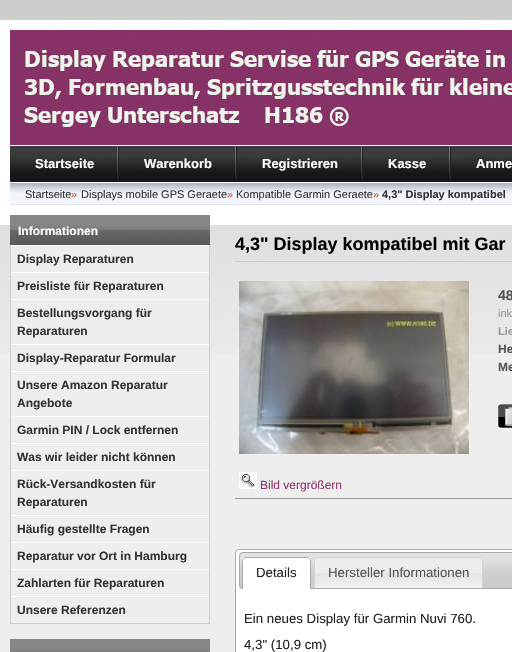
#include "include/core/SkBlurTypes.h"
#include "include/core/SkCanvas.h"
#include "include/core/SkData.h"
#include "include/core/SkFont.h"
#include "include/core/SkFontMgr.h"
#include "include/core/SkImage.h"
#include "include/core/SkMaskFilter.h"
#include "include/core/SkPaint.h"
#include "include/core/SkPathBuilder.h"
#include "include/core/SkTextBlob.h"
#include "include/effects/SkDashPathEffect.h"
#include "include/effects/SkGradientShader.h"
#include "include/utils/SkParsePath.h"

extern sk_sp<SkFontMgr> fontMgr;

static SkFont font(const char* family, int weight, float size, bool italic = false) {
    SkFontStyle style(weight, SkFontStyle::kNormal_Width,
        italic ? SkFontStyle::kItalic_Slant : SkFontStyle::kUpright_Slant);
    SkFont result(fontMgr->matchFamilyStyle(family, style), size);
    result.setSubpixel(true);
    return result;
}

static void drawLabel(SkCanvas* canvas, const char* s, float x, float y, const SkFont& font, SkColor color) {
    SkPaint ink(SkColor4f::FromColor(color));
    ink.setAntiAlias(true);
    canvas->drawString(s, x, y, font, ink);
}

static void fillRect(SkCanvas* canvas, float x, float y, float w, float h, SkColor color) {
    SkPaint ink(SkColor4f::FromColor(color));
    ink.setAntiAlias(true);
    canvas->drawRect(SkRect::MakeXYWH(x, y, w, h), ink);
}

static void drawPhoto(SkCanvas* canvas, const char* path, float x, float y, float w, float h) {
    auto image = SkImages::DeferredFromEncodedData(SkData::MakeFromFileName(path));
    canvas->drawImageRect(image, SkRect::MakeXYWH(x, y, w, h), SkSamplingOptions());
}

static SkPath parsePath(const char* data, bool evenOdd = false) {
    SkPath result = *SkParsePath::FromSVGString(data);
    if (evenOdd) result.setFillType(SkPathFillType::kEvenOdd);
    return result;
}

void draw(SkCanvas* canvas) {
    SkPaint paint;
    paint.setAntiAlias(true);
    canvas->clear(0xFFEEEEEE);
    drawPhoto(canvas, "assets/img1.png", 0, 0, 512, 353);
    fillRect(canvas, 10, 205, 502, 10, 0xFFFFFFFF);
    fillRect(canvas, 210, 215, 302, 10, 0xFFFFFFFF);
    fillRect(canvas, 0, 20, 10, 205, 0xFFFFFFFF);
    drawPhoto(canvas, "assets/img2.png", 10, 30, 502, 115);
    fillRect(canvas, 10, 20, 502, 10, 0xFFFFFFFF);
    fillRect(canvas, 10, 145, 502, 1, 0xFFFFFFFF);
    drawPhoto(canvas, "assets/img3.png", 18, 30, 494, 104);
    drawPhoto(canvas, "assets/img4.png", 10, 146, 502, 36);
    drawPhoto(canvas, "assets/img5.png", 117, 146, 2, 36);
    SkFont font1 = font("Liberation Sans", 700, 13);
    drawLabel(canvas, "Startseite", 35, 168, font1, 0xFFFFFFFF);
    drawPhoto(canvas, "assets/img5.png", 235, 146, 2, 36);
    drawLabel(canvas, "Warenkorb", 144, 168, font1, 0xFFFFFFFF);
    drawPhoto(canvas, "assets/img5.png", 361, 146, 2, 36);
    drawLabel(canvas, "Registrieren", 262, 168, font1, 0xFFFFFFFF);
    drawPhoto(canvas, "assets/img5.png", 449, 146, 2, 36);
    drawLabel(canvas, "Kasse", 388, 168, font1, 0xFFFFFFFF);
    drawLabel(canvas, "Anme", 476, 168, font1, 0xFFFFFFFF);
    drawPhoto(canvas, "assets/img6.png", 10, 182, 502, 23);
    SkFont font2 = font("Liberation Sans", 400, 11);
    drawLabel(canvas, "Startseite", 25, 198, font2, 0xFF333333);
    drawLabel(canvas, "»", 71, 198, font2, 0xFFC64934);
    drawLabel(canvas, "Displays mobile GPS Geraete", 81, 198, font2, 0xFF333333);
    drawLabel(canvas, "»", 227, 198, font2, 0xFFC64934);
    drawLabel(canvas, "Kompatible Garmin Geraete", 236, 198, font2, 0xFF333333);
    drawLabel(canvas, "»", 373, 198, font2, 0xFFC64934);
    SkFont font3 = font("Liberation Sans", 700, 11);
    drawLabel(canvas, "4,3\" Display kompatibel", 382, 198, font3, 0xFF333333);
    fillRect(canvas, 10, 215, 200, 11, 0xFF868686);
    drawPhoto(canvas, "assets/img7.png", 10, 226, 200, 19);
    SkFont font4 = font("Liberation Sans", 700, 12);
    drawLabel(canvas, "Informationen", 18, 235, font4, 0xFFFFFFFF);
    fillRect(canvas, 11, 246, 198, 107, 0xFFEDEDED);
    fillRect(canvas, 209, 245, 1, 379, 0xFFCCCCCC);
    fillRect(canvas, 10, 623, 200, 1, 0xFFCCCCCC);
    fillRect(canvas, 10, 245, 1, 379, 0xFFCCCCCC);
    fillRect(canvas, 11, 245, 198, 1, 0xFFFFFFFF);
    drawLabel(canvas, "Display Reparaturen", 17, 263, font4, 0xFF333333);
    fillRect(canvas, 11, 272, 198, 1, 0xFFFFFFFF);
    drawLabel(canvas, "Preisliste für Reparaturen", 17, 290, font4, 0xFF333333);
    fillRect(canvas, 11, 299, 198, 1, 0xFFFFFFFF);
    drawLabel(canvas, "Bestellungsvorgang für", 17, 317, font4, 0xFF333333);
    drawLabel(canvas, "Reparaturen", 17, 335, font4, 0xFF333333);
    fillRect(canvas, 11, 344, 198, 1, 0xFFFFFFFF);
    drawLabel(canvas, "Display-Reparatur Formular", 17, 362, font4, 0xFF333333);
    fillRect(canvas, 11, 371, 198, 1, 0xFFFFFFFF);
    drawLabel(canvas, "Unsere Amazon Reparatur", 17, 389, font4, 0xFF333333);
    drawLabel(canvas, "Angebote", 17, 407, font4, 0xFF333333);
    fillRect(canvas, 11, 416, 198, 1, 0xFFFFFFFF);
    drawLabel(canvas, "Garmin PIN / Lock entfernen", 17, 434, font4, 0xFF333333);
    fillRect(canvas, 11, 443, 198, 1, 0xFFFFFFFF);
    drawLabel(canvas, "Was wir leider nicht können", 17, 461, font4, 0xFF333333);
    fillRect(canvas, 11, 470, 198, 1, 0xFFFFFFFF);
    drawLabel(canvas, "Rück-Versandkosten für", 17, 488, font4, 0xFF333333);
    drawLabel(canvas, "Reparaturen", 17, 506, font4, 0xFF333333);
    fillRect(canvas, 11, 515, 198, 1, 0xFFFFFFFF);
    drawLabel(canvas, "Häufig gestellte Fragen", 17, 533, font4, 0xFF333333);
    fillRect(canvas, 11, 542, 198, 1, 0xFFFFFFFF);
    drawLabel(canvas, "Reparatur vor Ort in Hamburg", 17, 560, font4, 0xFF333333);
    fillRect(canvas, 11, 569, 198, 1, 0xFFFFFFFF);
    drawLabel(canvas, "Zahlarten für Reparaturen", 17, 587, font4, 0xFF333333);
    fillRect(canvas, 11, 596, 198, 1, 0xFFFFFFFF);
    drawLabel(canvas, "Unsere Referenzen", 17, 614, font4, 0xFF333333);
    fillRect(canvas, 10, 639, 200, 11, 0xFF868686);
    fillRect(canvas, 10, 650, 200, 2, 0xFF808080);
    fillRect(canvas, 235, 261, 277, 1, 0xFFCCCCCC);
    SkFont font5 = font("Liberation Sans", 700, 18);
    drawLabel(canvas, "4,3\" Display kompatibel mit Gar", 235, 250, font5, 0xFF000000);
    SkFont font6 = font("Liberation Sans", 700, 14);
    drawLabel(canvas, "48", 498, 300, font6, 0xFF555555);
    drawLabel(canvas, "ink", 498, 317, font2, 0xFF999999);
    drawLabel(canvas, "Lie", 498, 335, font3, 0xFF999999);
    drawLabel(canvas, "He", 498, 353, font4, 0xFF555555);
    drawLabel(canvas, "Me", 498, 371, font4, 0xFF555555);
    drawPhoto(canvas, "assets/img8.png", 498, 404, 14, 24);
    drawPhoto(canvas, "assets/img9.png", 239, 281, 230, 173);
    drawPhoto(canvas, "assets/img10.png", 239, 472, 18, 17);
    SkFont font7 = font("Liberation Sans", 400, 12);
    drawLabel(canvas, "Bild vergrößern", 260, 489, font7, 0xFF893769);
    fillRect(canvas, 235, 498, 277, 1, 0xFF999999);
    paint.setColor(0xFFFFFFFF);
    canvas->drawRoundRect(SkRect::MakeXYWH(235.5f, 549.5f, 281, 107), 3.5f, 3.5f, paint);
    paint.setStroke(true);
    paint.setStrokeWidth(1);
    paint.setColor(0xFFAAAAAA);
    canvas->drawRoundRect(SkRect::MakeXYWH(235.5f, 549.5f, 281, 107), 3.5f, 3.5f, paint);
    drawPhoto(canvas, "assets/img11.png", 239, 552, 273, 37);
    canvas->drawRoundRect(SkRect::MakeXYWH(239.5f, 552.5f, 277, 36), 3.5f, 3.5f, paint);
    fillRect(canvas, 242, 560, 69, 29, 0xFFFFFFFF);
    fillRect(canvas, 242, 557, 69, 3, 0xFFFEFEFE);
    paint.setStroke(false);
    canvas->drawPath(parsePath("M246 557H307C309 557 311 559 311 561V589H242V561C242 559 244 557 246 557ZM246 558H307C309 558 310 559 310 561V589H243V561C243 559 244 558 246 558Z", true), paint);
    SkFont font8 = font("Liberation Sans", 400, 13.25f);
    drawLabel(canvas, "Details", 256, 577, font8, 0xFF222222);
    drawPhoto(canvas, "assets/img12.png", 314, 557, 169, 31);
    paint.setColor(0xFFD3D3D3);
    canvas->drawPath(parsePath("M318 557H479C481 557 483 559 483 561V588H314V561C314 559 316 557 318 557ZM318 558H479C481 558 482 559 482 561V588H315V561C315 559 316 558 318 558Z", true), paint);
    drawLabel(canvas, "Hersteller Informationen", 328, 577, font8, 0xFF555555);
    drawLabel(canvas, "Ein neues Display für Garmin Nuvi 760.", 244, 623, font8, 0xFF222222);
    drawLabel(canvas, "4,3\" (10,9 cm)", 244, 649, font8, 0xFF222222);
}
